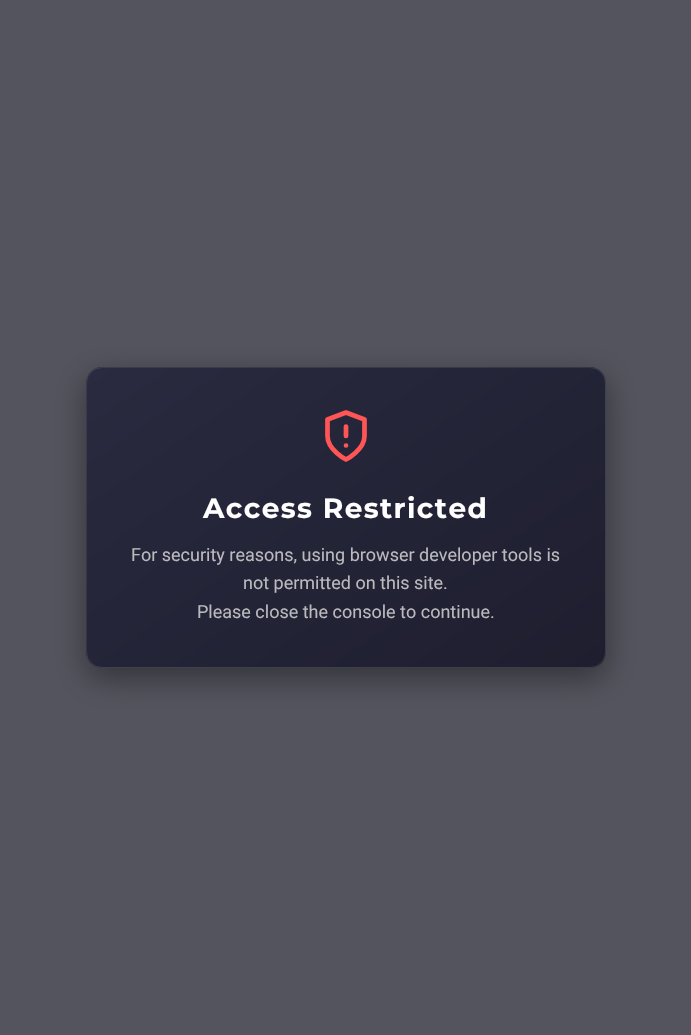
#include "include/core/SkBlurTypes.h"
#include "include/core/SkCanvas.h"
#include "include/core/SkData.h"
#include "include/core/SkFont.h"
#include "include/core/SkFontMgr.h"
#include "include/core/SkImage.h"
#include "include/core/SkMaskFilter.h"
#include "include/core/SkPaint.h"
#include "include/core/SkPathBuilder.h"
#include "include/core/SkTextBlob.h"
#include "include/effects/SkDashPathEffect.h"
#include "include/effects/SkGradientShader.h"
#include "include/utils/SkParsePath.h"

extern sk_sp<SkFontMgr> fontMgr;

static SkFont font(const char* family, int weight, float size, bool italic = false) {
    SkFontStyle style(weight, SkFontStyle::kNormal_Width,
        italic ? SkFontStyle::kItalic_Slant : SkFontStyle::kUpright_Slant);
    SkFont result(fontMgr->matchFamilyStyle(family, style), size);
    result.setSubpixel(true);
    return result;
}

static void drawLabel(SkCanvas* canvas, const char* s, float x, float y, const SkFont& font, SkColor color) {
    SkPaint ink(SkColor4f::FromColor(color));
    ink.setAntiAlias(true);
    canvas->drawString(s, x, y, font, ink);
}

static void drawTracked(SkCanvas* canvas, const char* s, float x, float y, const SkFont& font, const SkPaint& ink, float letter, float word) {
    std::vector<SkGlyphID> glyphs(font.countText(s, strlen(s), SkTextEncoding::kUTF8));
    std::vector<float> xs(glyphs.size());
    font.textToGlyphs(s, strlen(s), SkTextEncoding::kUTF8, glyphs);
    font.getXPos(glyphs, xs, x);
    float extra = 0;
    for (size_t i = 0; i < glyphs.size(); i++) {
        xs[i] += extra;
        extra += letter + word * (glyphs[i] == font.unicharToGlyph(' '));
    }
    canvas->drawTextBlob(SkTextBlob::MakeFromPosHGlyphs(glyphs, xs, y, font), 0, 0, ink);
}

static SkPath parsePath(const char* data, bool evenOdd = false) {
    SkPath result = *SkParsePath::FromSVGString(data);
    if (evenOdd) result.setFillType(SkPathFillType::kEvenOdd);
    return result;
}

void draw(SkCanvas* canvas) {
    SkPaint paint;
    paint.setAntiAlias(true);
    canvas->clear(0xFF54545E);
    paint.setColor(0x66000000);
    paint.setMaskFilter(SkMaskFilter::MakeBlur(kNormal_SkBlurStyle, 15));
    canvas->drawRoundRect(SkRect::MakeXYWH(86, 377, 520, 301), 16, 16, paint);
    paint.setMaskFilter(nullptr);
    canvas->save();
    canvas->clipPath(parsePath("M102 367H590C599 367 606 374 606 383V652C606 661 599 668 590 668H102C93 668 86 661 86 652V383C86 374 93 367 102 367Z"), true);
    {
        const SkColor colors[] = {0xFF2A2A40, 0xFF1E1E2F};
        const float stops[] = {0, 1};
        const SkPoint ends[] = {{191, -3.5f}, {501, 441}};
        paint.setShader(SkGradientShader::MakeLinear(ends, colors, stops, 2, SkTileMode::kClamp));
        paint.setAlpha(255);
    }
    canvas->drawRect(SkRect::MakeXYWH(96, 367, 500, 1), paint);
    {
        const SkColor colors[] = {0xFF2A2A40, 0xFF1E1E2F};
        const float stops[] = {0, 1};
        const SkPoint ends[] = {{-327, 295}, {-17, 740}};
        paint.setShader(SkGradientShader::MakeLinear(ends, colors, stops, 2, SkTileMode::kClamp));
        paint.setAlpha(255);
    }
    canvas->drawRect(SkRect::MakeXYWH(86, 377, 1, 281), paint);
    {
        const SkColor colors[] = {0xFF2A2A40, 0xFF1E1E2F};
        const float stops[] = {0, 1};
        const SkPoint ends[] = {{191, 295}, {501, 740}};
        paint.setShader(SkGradientShader::MakeLinear(ends, colors, stops, 2, SkTileMode::kClamp));
        paint.setAlpha(255);
    }
    canvas->drawRect(SkRect::MakeXYWH(87, 368, 518, 299), paint);
    {
        const SkColor colors[] = {0xFF2A2A40, 0xFF1E1E2F};
        const float stops[] = {0, 1};
        const SkPoint ends[] = {{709, 295}, {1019, 740}};
        paint.setShader(SkGradientShader::MakeLinear(ends, colors, stops, 2, SkTileMode::kClamp));
        paint.setAlpha(255);
    }
    canvas->drawRect(SkRect::MakeXYWH(605, 377, 1, 281), paint);
    {
        const SkColor colors[] = {0xFF2A2A40, 0xFF1E1E2F};
        const float stops[] = {0, 1};
        const SkPoint ends[] = {{191, 594}, {501, 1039}};
        paint.setShader(SkGradientShader::MakeLinear(ends, colors, stops, 2, SkTileMode::kClamp));
        paint.setAlpha(255);
    }
    canvas->drawRect(SkRect::MakeXYWH(96, 667, 500, 1), paint);
    canvas->restore();
    paint.setStroke(true);
    paint.setStrokeWidth(1);
    paint.setShader(nullptr);
    paint.setColor(0x1AFFFFFF);
    canvas->drawRoundRect(SkRect::MakeXYWH(86.5f, 367.5f, 519, 300), 15.5f, 15.5f, paint);
    paint.setStrokeWidth(4.7f);
    paint.setStrokeCap(SkPaint::kRound_Cap);
    paint.setStrokeJoin(SkPaint::kRound_Join);
    paint.setColor(0xFFFF5555);
    canvas->drawPath(parsePath("M346 459.5C346 459.5 364.5 450 364.5 436V419.5L346 412.5L327.5 419.5V436C327.5 450 346 459.5 346 459.5ZM346 426.5V436M346 445.5H346"), paint);
    SkFont font1 = font("Montserrat", 700, 28);
    paint.setStroke(false);
    paint.setColor(0xFFFFFFFF);
    drawTracked(canvas, "Access Restricted", 203, 518, font1, paint, 1.4f, 0);
    SkFont font2 = font("Roboto", 400, 18);
    drawLabel(canvas, "For security reasons, using browser developer tools is", 131, 561, font2, 0xFFBABABE);
    drawLabel(canvas, "not permitted on this site.", 243, 589, font2, 0xFFBABABE);
    drawLabel(canvas, "Please close the console to continue.", 197, 618, font2, 0xFFBABABE);
}
